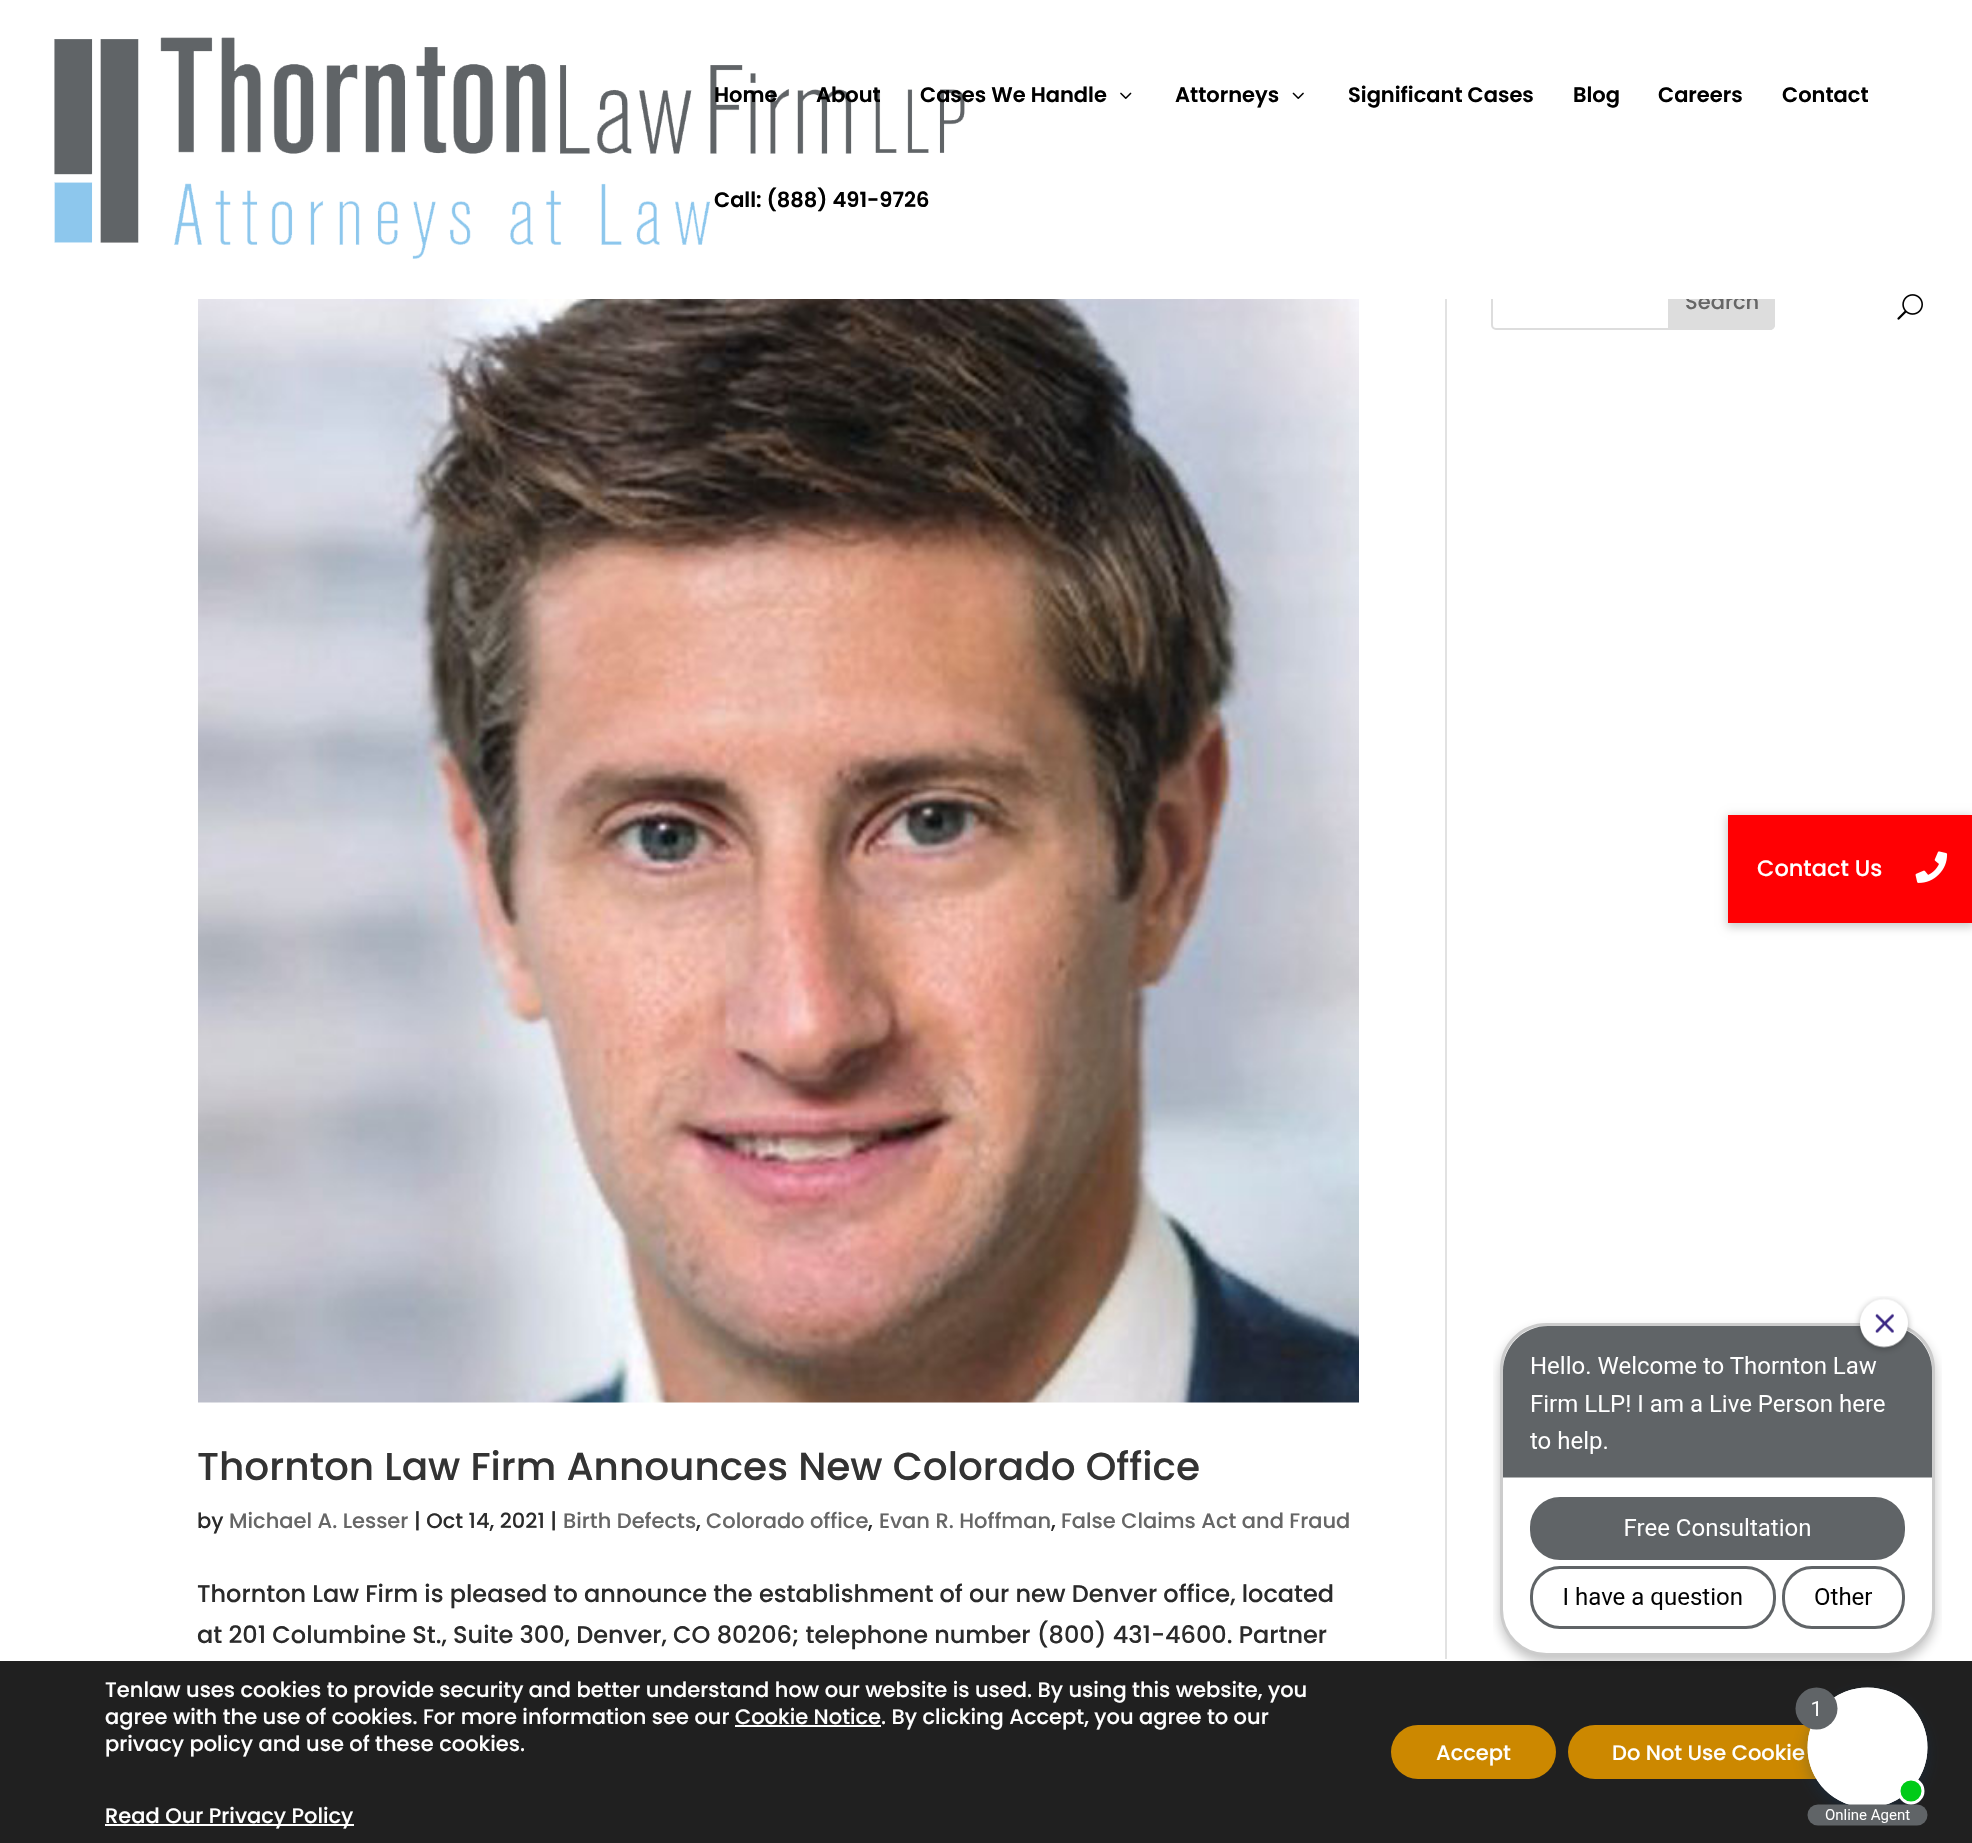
#include "include/core/SkBlurTypes.h"
#include "include/core/SkCanvas.h"
#include "include/core/SkData.h"
#include "include/core/SkFont.h"
#include "include/core/SkFontMgr.h"
#include "include/core/SkImage.h"
#include "include/core/SkMaskFilter.h"
#include "include/core/SkPaint.h"
#include "include/core/SkPathBuilder.h"
#include "include/core/SkTextBlob.h"
#include "include/effects/SkDashPathEffect.h"
#include "include/effects/SkGradientShader.h"
#include "include/utils/SkParsePath.h"

extern sk_sp<SkFontMgr> fontMgr;

static SkFont font(const char* family, int weight, float size, bool italic = false) {
    SkFontStyle style(weight, SkFontStyle::kNormal_Width,
        italic ? SkFontStyle::kItalic_Slant : SkFontStyle::kUpright_Slant);
    SkFont result(fontMgr->matchFamilyStyle(family, style), size);
    result.setSubpixel(true);
    return result;
}

static void drawLabel(SkCanvas* canvas, const char* s, float x, float y, const SkFont& font, SkColor color) {
    SkPaint ink(SkColor4f::FromColor(color));
    ink.setAntiAlias(true);
    canvas->drawString(s, x, y, font, ink);
}

static void fillRect(SkCanvas* canvas, float x, float y, float w, float h, SkColor color) {
    SkPaint ink(SkColor4f::FromColor(color));
    ink.setAntiAlias(true);
    canvas->drawRect(SkRect::MakeXYWH(x, y, w, h), ink);
}

static void fillRRect(SkCanvas* canvas, float x, float y, float w, float h, float radius, SkColor color) {
    SkPaint ink(SkColor4f::FromColor(color));
    ink.setAntiAlias(true);
    canvas->drawRoundRect(SkRect::MakeXYWH(x, y, w, h), radius, radius, ink);
}

static void drawPhoto(SkCanvas* canvas, const char* path, float x, float y, float w, float h) {
    auto image = SkImages::DeferredFromEncodedData(SkData::MakeFromFileName(path));
    canvas->drawImageRect(image, SkRect::MakeXYWH(x, y, w, h), SkSamplingOptions());
}

static SkPath parsePath(const char* data, bool evenOdd = false) {
    SkPath result = *SkParsePath::FromSVGString(data);
    if (evenOdd) result.setFillType(SkPathFillType::kEvenOdd);
    return result;
}

void draw(SkCanvas* canvas) {
    SkPaint paint;
    paint.setAntiAlias(true);
    canvas->clear(0xFFFFFFFF);
    paint.setStroke(true);
    paint.setStrokeWidth(2);
    paint.setColor(0xFFDDDDDD);
    canvas->drawRoundRect(SkRect::MakeXYWH(1492, 271, 282, 58), 4, 4, paint);
    paint.setStroke(false);
    canvas->drawPath(parsePath("M1669 271H1770C1772 271 1774 273 1774 275V325C1774 327 1772 329 1770 329H1669Z"), paint);
    paint.setStroke(true);
    canvas->drawPath(parsePath("M1669 271H1770C1772 271 1774 273 1774 275V325C1774 327 1772 329 1770 329H1669Z"), paint);
    SkFont font1 = font("Poppins", 500, 21);
    drawLabel(canvas, "Search", 1685, 309, font1, 0xFF666666);
    fillRect(canvas, 1491, 270, 284, 29, 0xFFFFFFFF);
    drawPhoto(canvas, "assets/img1.png", 54, 37, 911, 222);
    SkFont font2 = font("Poppins", 600, 21);
    drawLabel(canvas, "Home", 714, 102, font2, 0xFF000000);
    drawLabel(canvas, "About", 816, 102, font2, 0xFF000000);
    drawLabel(canvas, "Cases We Handle", 920, 102, font2, 0xFF000000);
    drawPhoto(canvas, "assets/img2.png", 1120, 92, 12, 7);
    drawLabel(canvas, "Attorneys", 1175, 102, font2, 0xFF000000);
    drawPhoto(canvas, "assets/img3.png", 1292, 92, 12, 7);
    drawLabel(canvas, "Significant Cases", 1348, 102, font2, 0xFF000000);
    drawLabel(canvas, "Blog", 1573, 102, font2, 0xFF000000);
    drawLabel(canvas, "Careers", 1658, 102, font2, 0xFF000000);
    drawLabel(canvas, "Contact", 1782, 102, font2, 0xFF000000);
    drawLabel(canvas, "Call: (888) 491-9726", 714, 207, font2, 0xFF000000);
    drawPhoto(canvas, "assets/img4.png", 1897, 294, 26, 26);
    drawPhoto(canvas, "assets/img5.png", 198, 299, 1161, 1104);
    SkFont font3 = font("Poppins", 500, 39);
    drawLabel(canvas, "Thornton Law Firm Announces New Colorado Office", 197, 1480, font3, 0xFF333333);
    drawLabel(canvas, "by", 197, 1528, font1, 0xFF2B2B2B);
    drawLabel(canvas, "Michael A. Lesser", 229, 1528, font1, 0xFF666666);
    drawLabel(canvas, "| Oct 14, 2021 |", 414, 1528, font1, 0xFF2B2B2B);
    drawLabel(canvas, "Birth Defects", 563, 1528, font1, 0xFF666666);
    drawLabel(canvas, ",", 696, 1528, font1, 0xFF2B2B2B);
    drawLabel(canvas, "Colorado office", 706, 1528, font1, 0xFF666666);
    drawLabel(canvas, ",", 868, 1528, font1, 0xFF2B2B2B);
    drawLabel(canvas, "Evan R. Hoffman", 879, 1528, font1, 0xFF666666);
    drawLabel(canvas, ",", 1051, 1528, font1, 0xFF2B2B2B);
    drawLabel(canvas, "False Claims Act and Fraud", 1061, 1528, font1, 0xFF666666);
    SkFont font4 = font("Poppins", 500, 24);
    drawLabel(canvas, "Thornton Law Firm is pleased to announce the establishment of our new Denver office, located", 197, 1602, font4, 0xFF2B2B2B);
    drawLabel(canvas, "at 201 Columbine St., Suite 300, Denver, CO 80206; telephone number (800) 431-4600. Partner", 197, 1643, font4, 0xFF2B2B2B);
    fillRect(canvas, 1445, 299, 2, 1360, 0xFFE2E2E2);
    paint.setStroke(false);
    paint.setColor(0x33000000);
    paint.setMaskFilter(SkMaskFilter::MakeBlur(kNormal_SkBlurStyle, 4.5f));
    canvas->drawRect(SkRect::MakeXYWH(1727, 816, 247, 111), paint);
    paint.setMaskFilter(nullptr);
    fillRect(canvas, 1728, 815, 244, 108, 0xFFFF0003);
    SkFont font5 = font("Poppins", 500, 22.5f);
    drawLabel(canvas, "Contact Us", 1757, 876, font5, 0xFFFFFFFF);
    drawPhoto(canvas, "assets/img6.png", 1915, 851, 33, 32);
    fillRect(canvas, 0, 1661, 1972, 182, 0xFF202020);
    fillRRect(canvas, 1391, 1725, 165, 54, 27, 0xFFCC8800);
    drawLabel(canvas, "Accept", 1436, 1760, font1, 0xFFFFFFFF);
    fillRRect(canvas, 1568, 1725, 294, 54, 27, 0xFFCC8800);
    drawLabel(canvas, "Do Not Use Cookie", 1612, 1760, font1, 0xFFFFFFFF);
    drawPhoto(canvas, "assets/img7.png", 1493, 1296, 449, 530);
    drawLabel(canvas, "Tenlaw uses cookies to provide security and better understand how our website is used. By using this website, you", 105, 1697, font1, 0xFFFFFFFF);
    drawLabel(canvas, "agree with the use of cookies. For more information see our Cookie Notice. By clicking Accept, you agree to our", 105, 1724, font1, 0xFFFFFFFF);
    fillRect(canvas, 735, 1725, 146, 2, 0xFFFFFFFF);
    drawLabel(canvas, "privacy policy and use of these cookies.", 105, 1751, font1, 0xFFFFFFFF);
    fillRect(canvas, 105, 1824, 249, 2, 0xFFFFFFFF);
    drawLabel(canvas, "Read Our Privacy Policy", 105, 1823, font1, 0xFFFFFFFF);
}
